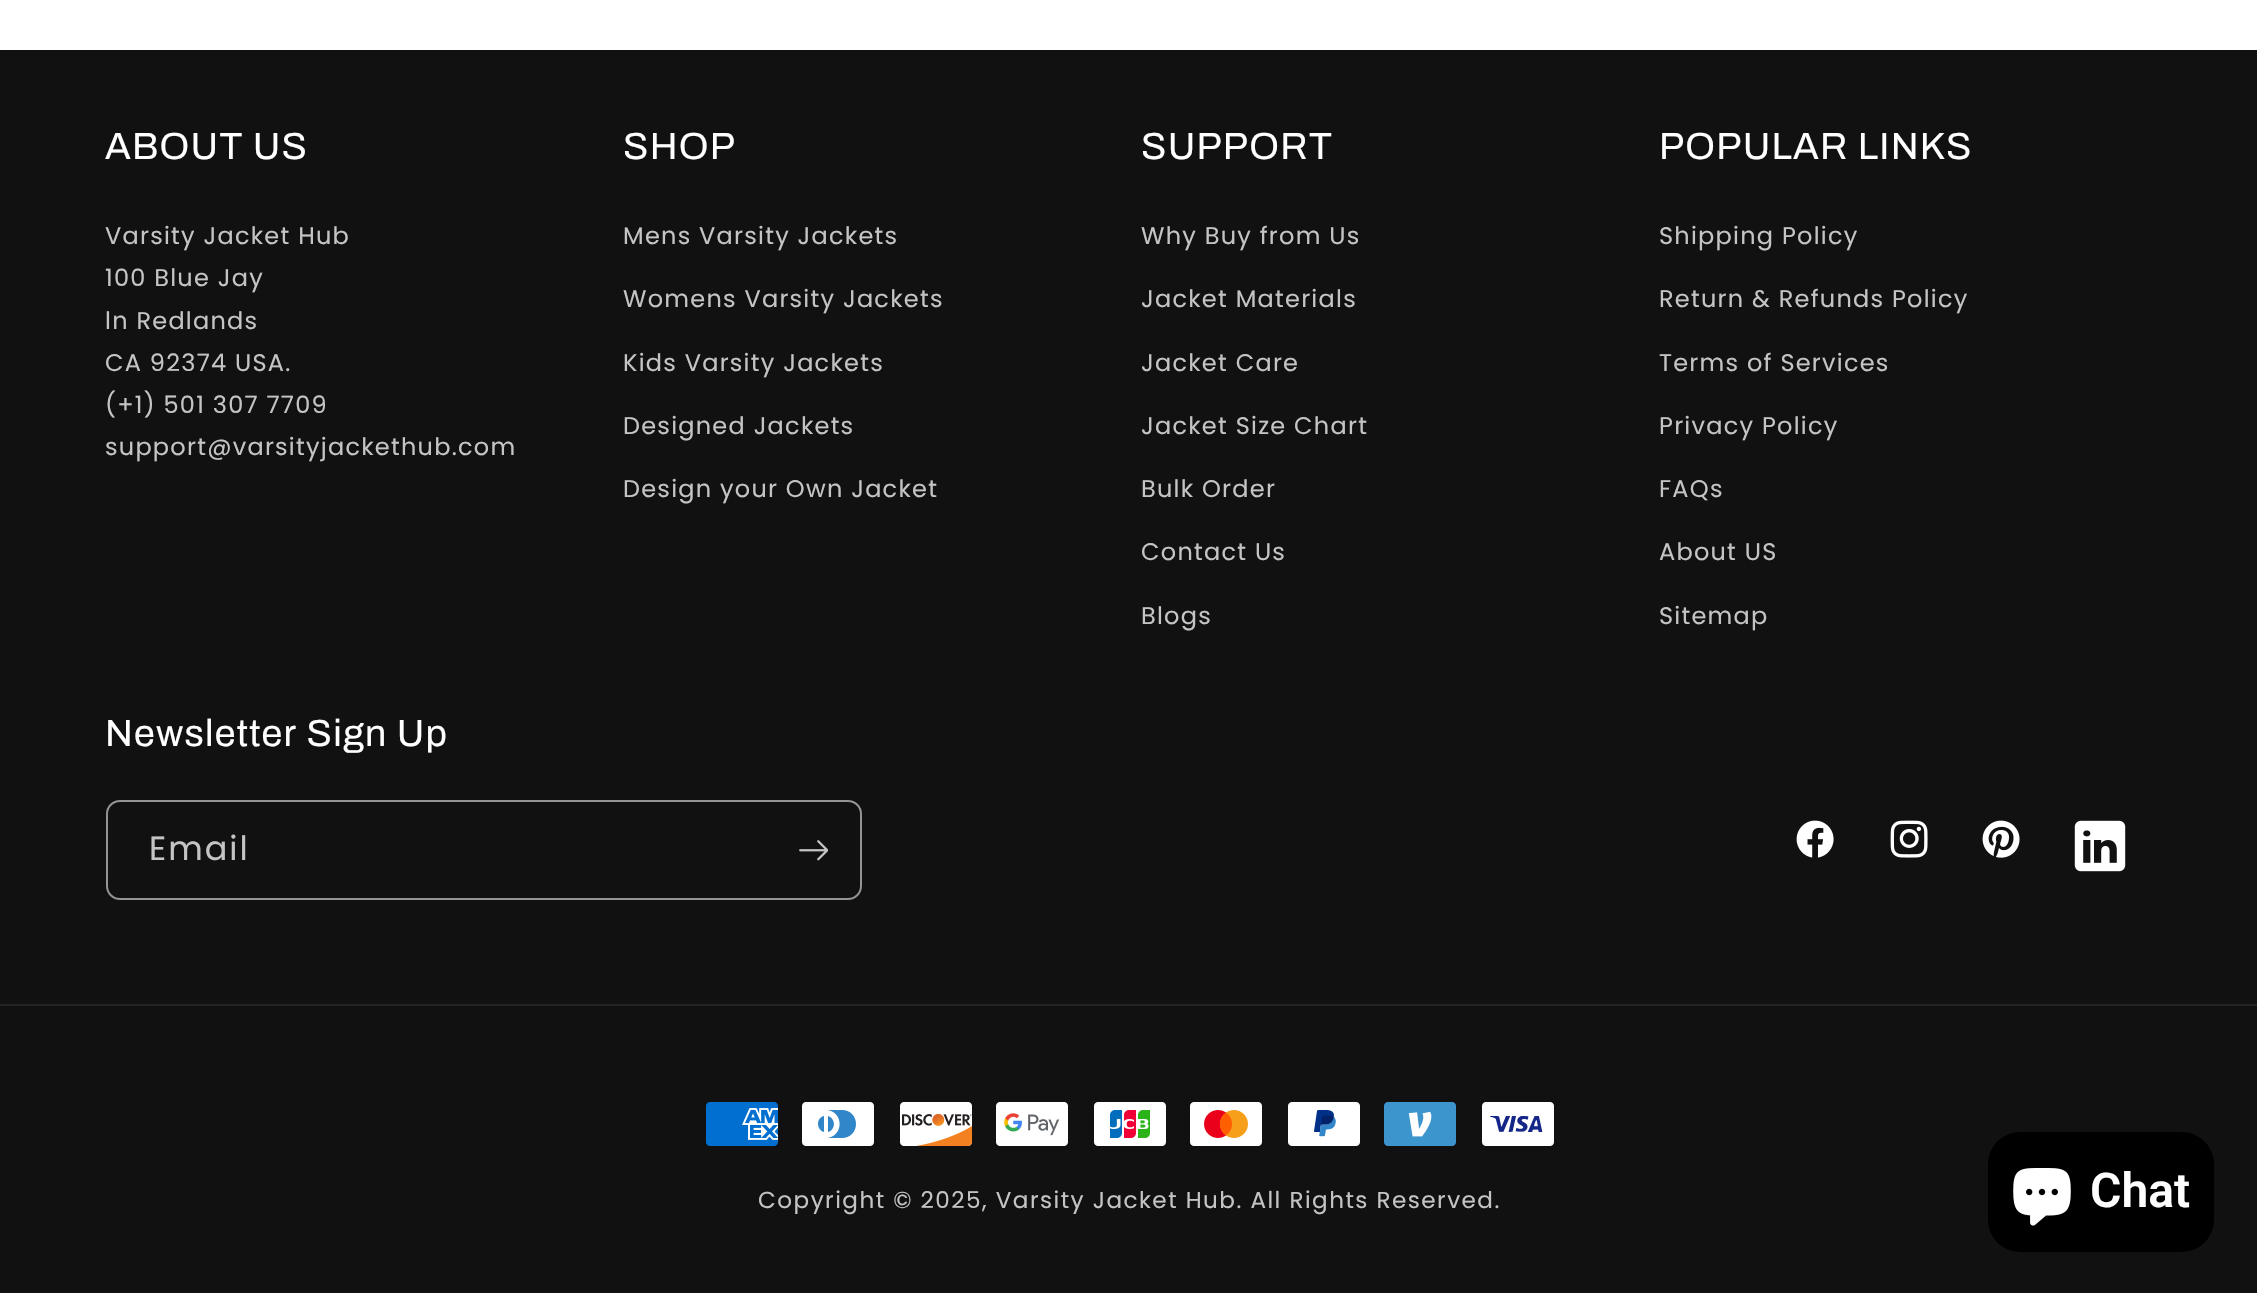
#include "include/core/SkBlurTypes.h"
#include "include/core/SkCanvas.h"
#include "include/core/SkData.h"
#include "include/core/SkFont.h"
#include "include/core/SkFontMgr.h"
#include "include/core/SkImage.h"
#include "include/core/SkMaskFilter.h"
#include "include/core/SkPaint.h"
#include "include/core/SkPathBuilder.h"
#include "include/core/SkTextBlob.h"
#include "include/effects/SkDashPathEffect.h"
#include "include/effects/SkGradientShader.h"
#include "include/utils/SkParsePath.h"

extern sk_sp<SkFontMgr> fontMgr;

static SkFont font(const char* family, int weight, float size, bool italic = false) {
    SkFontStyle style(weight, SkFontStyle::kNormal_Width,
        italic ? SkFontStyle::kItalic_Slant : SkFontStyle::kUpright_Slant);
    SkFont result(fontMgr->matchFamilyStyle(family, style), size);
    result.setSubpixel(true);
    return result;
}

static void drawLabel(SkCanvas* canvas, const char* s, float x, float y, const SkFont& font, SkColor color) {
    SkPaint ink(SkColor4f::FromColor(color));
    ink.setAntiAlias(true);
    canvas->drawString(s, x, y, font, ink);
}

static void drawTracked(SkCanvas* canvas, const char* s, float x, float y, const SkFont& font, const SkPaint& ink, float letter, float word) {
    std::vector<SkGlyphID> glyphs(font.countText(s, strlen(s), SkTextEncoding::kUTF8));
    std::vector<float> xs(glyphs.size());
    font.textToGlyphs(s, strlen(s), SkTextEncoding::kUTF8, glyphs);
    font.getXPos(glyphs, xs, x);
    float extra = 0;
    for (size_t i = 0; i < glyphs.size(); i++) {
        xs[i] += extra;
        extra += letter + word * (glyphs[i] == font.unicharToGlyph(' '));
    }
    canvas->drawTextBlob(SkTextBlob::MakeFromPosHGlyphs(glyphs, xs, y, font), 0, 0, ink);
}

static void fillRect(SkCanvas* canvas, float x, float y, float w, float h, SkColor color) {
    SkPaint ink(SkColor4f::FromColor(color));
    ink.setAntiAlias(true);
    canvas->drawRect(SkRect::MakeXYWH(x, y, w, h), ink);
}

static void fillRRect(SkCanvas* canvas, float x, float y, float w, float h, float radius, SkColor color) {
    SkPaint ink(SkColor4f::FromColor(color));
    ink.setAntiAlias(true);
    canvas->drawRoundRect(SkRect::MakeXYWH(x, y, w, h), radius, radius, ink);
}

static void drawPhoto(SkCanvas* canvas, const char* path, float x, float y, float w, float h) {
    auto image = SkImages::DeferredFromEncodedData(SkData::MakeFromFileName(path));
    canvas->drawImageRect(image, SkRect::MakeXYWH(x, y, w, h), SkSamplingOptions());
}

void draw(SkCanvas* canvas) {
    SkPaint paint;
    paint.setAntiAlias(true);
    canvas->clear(0xFFFFFFFF);
    fillRect(canvas, 0, 50, 2257, 1243, 0xFF111111);
    SkFont font1 = font("Archivo", 400, 37.75f);
    paint.setColor(0xFFFFFFFF);
    drawTracked(canvas, "ABOUT US", 105, 159, font1, paint, 1.25f, 0);
    SkFont font2 = font("Poppins", 400, 24);
    paint.setColor(0xFFC4C4C4);
    drawTracked(canvas, "Varsity Jacket Hub", 105, 244, font2, paint, 1.25f, 0);
    drawTracked(canvas, "100 Blue Jay", 105, 286, font2, paint, 1.25f, 0);
    drawTracked(canvas, "ln Redlands", 105, 329, font2, paint, 1.25f, 0);
    drawTracked(canvas, "CA 92374 USA.", 105, 371, font2, paint, 1.25f, 0);
    drawTracked(canvas, "(+1) 501 307 7709", 105, 413, font2, paint, 1.25f, 0);
    drawTracked(canvas, "support@varsityjackethub.com", 105, 455, font2, paint, 1.25f, 0);
    paint.setColor(0xFFFFFFFF);
    drawTracked(canvas, "SHOP", 623, 159, font1, paint, 1.25f, 0);
    paint.setColor(0xFFC4C4C4);
    drawTracked(canvas, "Mens Varsity Jackets", 623, 244, font2, paint, 1.25f, 0);
    drawTracked(canvas, "Womens Varsity Jackets", 623, 307, font2, paint, 1.25f, 0);
    drawTracked(canvas, "Kids Varsity Jackets", 623, 371, font2, paint, 1.25f, 0);
    drawTracked(canvas, "Designed Jackets", 623, 434, font2, paint, 1.25f, 0);
    drawTracked(canvas, "Design your Own Jacket", 623, 497, font2, paint, 1.25f, 0);
    paint.setColor(0xFFFFFFFF);
    drawTracked(canvas, "SUPPORT", 1141, 159, font1, paint, 1.25f, 0);
    paint.setColor(0xFFC4C4C4);
    drawTracked(canvas, "Why Buy from Us", 1141, 244, font2, paint, 1.25f, 0);
    drawTracked(canvas, "Jacket Materials", 1141, 307, font2, paint, 1.25f, 0);
    drawTracked(canvas, "Jacket Care", 1141, 371, font2, paint, 1.25f, 0);
    drawTracked(canvas, "Jacket Size Chart", 1141, 434, font2, paint, 1.25f, 0);
    drawTracked(canvas, "Bulk Order", 1141, 497, font2, paint, 1.25f, 0);
    drawTracked(canvas, "Contact Us", 1141, 560, font2, paint, 1.25f, 0);
    drawTracked(canvas, "Blogs", 1141, 624, font2, paint, 1.25f, 0);
    paint.setColor(0xFFFFFFFF);
    drawTracked(canvas, "POPULAR LINKS", 1659, 159, font1, paint, 1.25f, 0);
    paint.setColor(0xFFC4C4C4);
    drawTracked(canvas, "Shipping Policy", 1659, 244, font2, paint, 1.25f, 0);
    drawTracked(canvas, "Return & Refunds Policy", 1659, 307, font2, paint, 1.25f, 0);
    drawTracked(canvas, "Terms of Services", 1659, 371, font2, paint, 1.25f, 0);
    drawTracked(canvas, "Privacy Policy", 1659, 434, font2, paint, 1.25f, 0);
    drawTracked(canvas, "FAQs", 1659, 497, font2, paint, 1.25f, 0);
    drawTracked(canvas, "About US", 1659, 560, font2, paint, 1.25f, 0);
    drawTracked(canvas, "Sitemap", 1659, 624, font2, paint, 1.25f, 0);
    paint.setColor(0xFFFFFFFF);
    drawTracked(canvas, "Newsletter Sign Up", 105, 746, font1, paint, 1.25f, 0);
    paint.setStroke(true);
    paint.setStrokeWidth(2);
    paint.setColor(0xFF949494);
    canvas->drawRoundRect(SkRect::MakeXYWH(107, 801, 754, 98), 13, 13, paint);
    SkFont font3 = font("Poppins", 400, 33.5f);
    paint.setStroke(false);
    paint.setColor(0xFFC4C4C4);
    drawTracked(canvas, "Email", 149, 860, font3, paint, 2, 0);
    drawPhoto(canvas, "assets/img1.png", 799, 840, 29, 21);
    drawPhoto(canvas, "assets/img2.png", 1796, 820, 38, 38);
    drawPhoto(canvas, "assets/img3.png", 1890, 820, 38, 38);
    drawPhoto(canvas, "assets/img4.png", 1982, 820, 38, 38);
    drawPhoto(canvas, "assets/img5.png", 2074, 820, 52, 52);
    fillRect(canvas, 0, 1004, 2257, 2, 0xFF242424);
    drawPhoto(canvas, "assets/img6.png", 706, 1102, 72, 44);
    drawPhoto(canvas, "assets/img7.png", 802, 1102, 72, 44);
    drawPhoto(canvas, "assets/img8.png", 900, 1102, 73, 44);
    drawPhoto(canvas, "assets/img9.png", 996, 1102, 72, 44);
    drawPhoto(canvas, "assets/img10.png", 1094, 1102, 72, 44);
    drawPhoto(canvas, "assets/img11.png", 1190, 1102, 72, 44);
    drawPhoto(canvas, "assets/img12.png", 1288, 1102, 72, 44);
    drawPhoto(canvas, "assets/img13.png", 1384, 1102, 72, 44);
    drawPhoto(canvas, "assets/img14.png", 1482, 1102, 72, 44);
    SkFont font4 = font("Poppins", 400, 23.1f);
    drawTracked(canvas, "Copyright © 2025, Varsity Jacket Hub. All Rights Reserved.", 758, 1208, font4, paint, 1.47f, 0);
    fillRRect(canvas, 1988, 1132, 226, 120, 32, 0xFF000000);
    drawPhoto(canvas, "assets/img15.png", 2013, 1168, 58, 58);
    SkFont font5 = font("Roboto", 600, 48);
    drawLabel(canvas, "Chat", 2090, 1207, font5, 0xFFFFFFFF);
}
